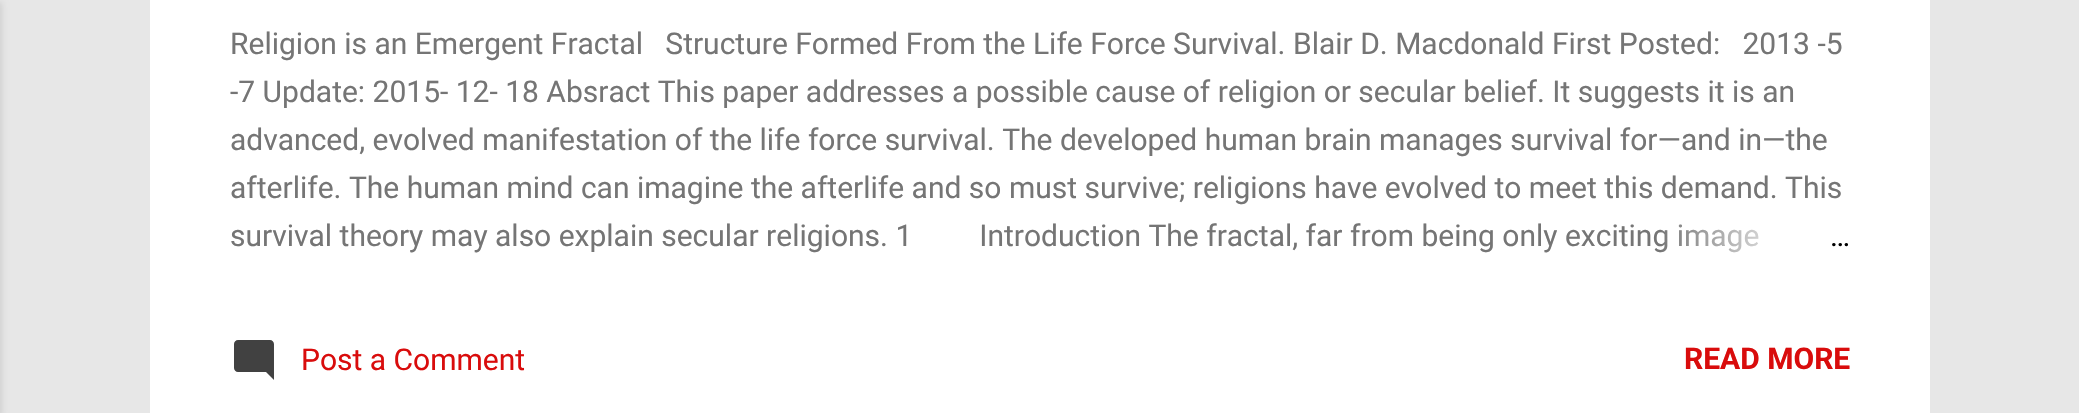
#include "include/core/SkBlurTypes.h"
#include "include/core/SkCanvas.h"
#include "include/core/SkData.h"
#include "include/core/SkFont.h"
#include "include/core/SkFontMgr.h"
#include "include/core/SkImage.h"
#include "include/core/SkMaskFilter.h"
#include "include/core/SkPaint.h"
#include "include/core/SkPathBuilder.h"
#include "include/core/SkTextBlob.h"
#include "include/effects/SkDashPathEffect.h"
#include "include/effects/SkGradientShader.h"
#include "include/utils/SkParsePath.h"

extern sk_sp<SkFontMgr> fontMgr;

static SkFont font(const char* family, int weight, float size, bool italic = false) {
    SkFontStyle style(weight, SkFontStyle::kNormal_Width,
        italic ? SkFontStyle::kItalic_Slant : SkFontStyle::kUpright_Slant);
    SkFont result(fontMgr->matchFamilyStyle(family, style), size);
    result.setSubpixel(true);
    return result;
}

static void drawLabel(SkCanvas* canvas, const char* s, float x, float y, const SkFont& font, SkColor color) {
    SkPaint ink(SkColor4f::FromColor(color));
    ink.setAntiAlias(true);
    canvas->drawString(s, x, y, font, ink);
}

static void fillRect(SkCanvas* canvas, float x, float y, float w, float h, SkColor color) {
    SkPaint ink(SkColor4f::FromColor(color));
    ink.setAntiAlias(true);
    canvas->drawRect(SkRect::MakeXYWH(x, y, w, h), ink);
}

static void drawPhoto(SkCanvas* canvas, const char* path, float x, float y, float w, float h) {
    auto image = SkImages::DeferredFromEncodedData(SkData::MakeFromFileName(path));
    canvas->drawImageRect(image, SkRect::MakeXYWH(x, y, w, h), SkSamplingOptions());
}

void draw(SkCanvas* canvas) {
    SkPaint paint;
    paint.setAntiAlias(true);
    canvas->clear(0xFFE7E7E7);
    paint.setColor(0x1A000000);
    paint.setMaskFilter(SkMaskFilter::MakeBlur(kNormal_SkBlurStyle, 3));
    canvas->drawRect(SkRect::MakeXYWH(-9, 2, 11, 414), paint);
    paint.setMaskFilter(nullptr);
    fillRect(canvas, 150, 0, 1780, 413, 0xFFFFFFFF);
    SkFont font1 = font("Roboto", 400, 30);
    drawLabel(canvas, "Religion is an Emergent Fractal   Structure Formed From the Life Force Survival. Blair D. Macdonald First Posted:   2013 -5", 230, 54, font1, 0xFF757575);
    drawLabel(canvas, "-7 Update: 2015- 12- 18 Absract This paper addresses a possible cause of religion or secular belief. It suggests it is an", 230, 102, font1, 0xFF757575);
    drawLabel(canvas, "advanced, evolved manifestation of the life force survival. The developed human brain manages survival for—and in—the", 230, 150, font1, 0xFF757575);
    drawLabel(canvas, "afterlife. The human mind can imagine the afterlife and so must survive; religions have evolved to meet this demand. This", 230, 198, font1, 0xFF757575);
    drawLabel(canvas, "survival theory may also explain secular religions. 1         Introduction The fractal, far from being only exciting image", 230, 246, font1, 0xFF757575);
    {
        const SkColor colors[] = {0xFFFFFFFF, 0xFFFFFFFF, 0x00FFFFFF};
        const float stops[] = {0, 0.2f, 1};
        const SkPoint ends[] = {{1850, 236}, {1658, 236}};
        paint.setShader(SkGradientShader::MakeLinear(ends, colors, stops, 3, SkTileMode::kClamp));
        paint.setAlpha(255);
    }
    canvas->drawRect(SkRect::MakeXYWH(1661, 224, 98, 29), paint);
    drawLabel(canvas, "…", 1830, 246, font1, 0xFF000000);
    drawPhoto(canvas, "assets/img1.png", 234, 340, 40, 40);
    drawLabel(canvas, "Post a Comment", 301, 370, font1, 0xFFD90C0C);
    SkFont font2 = font("Roboto", 700, 30);
    drawLabel(canvas, "READ MORE", 1684, 369, font2, 0xFFD90C0C);
}
